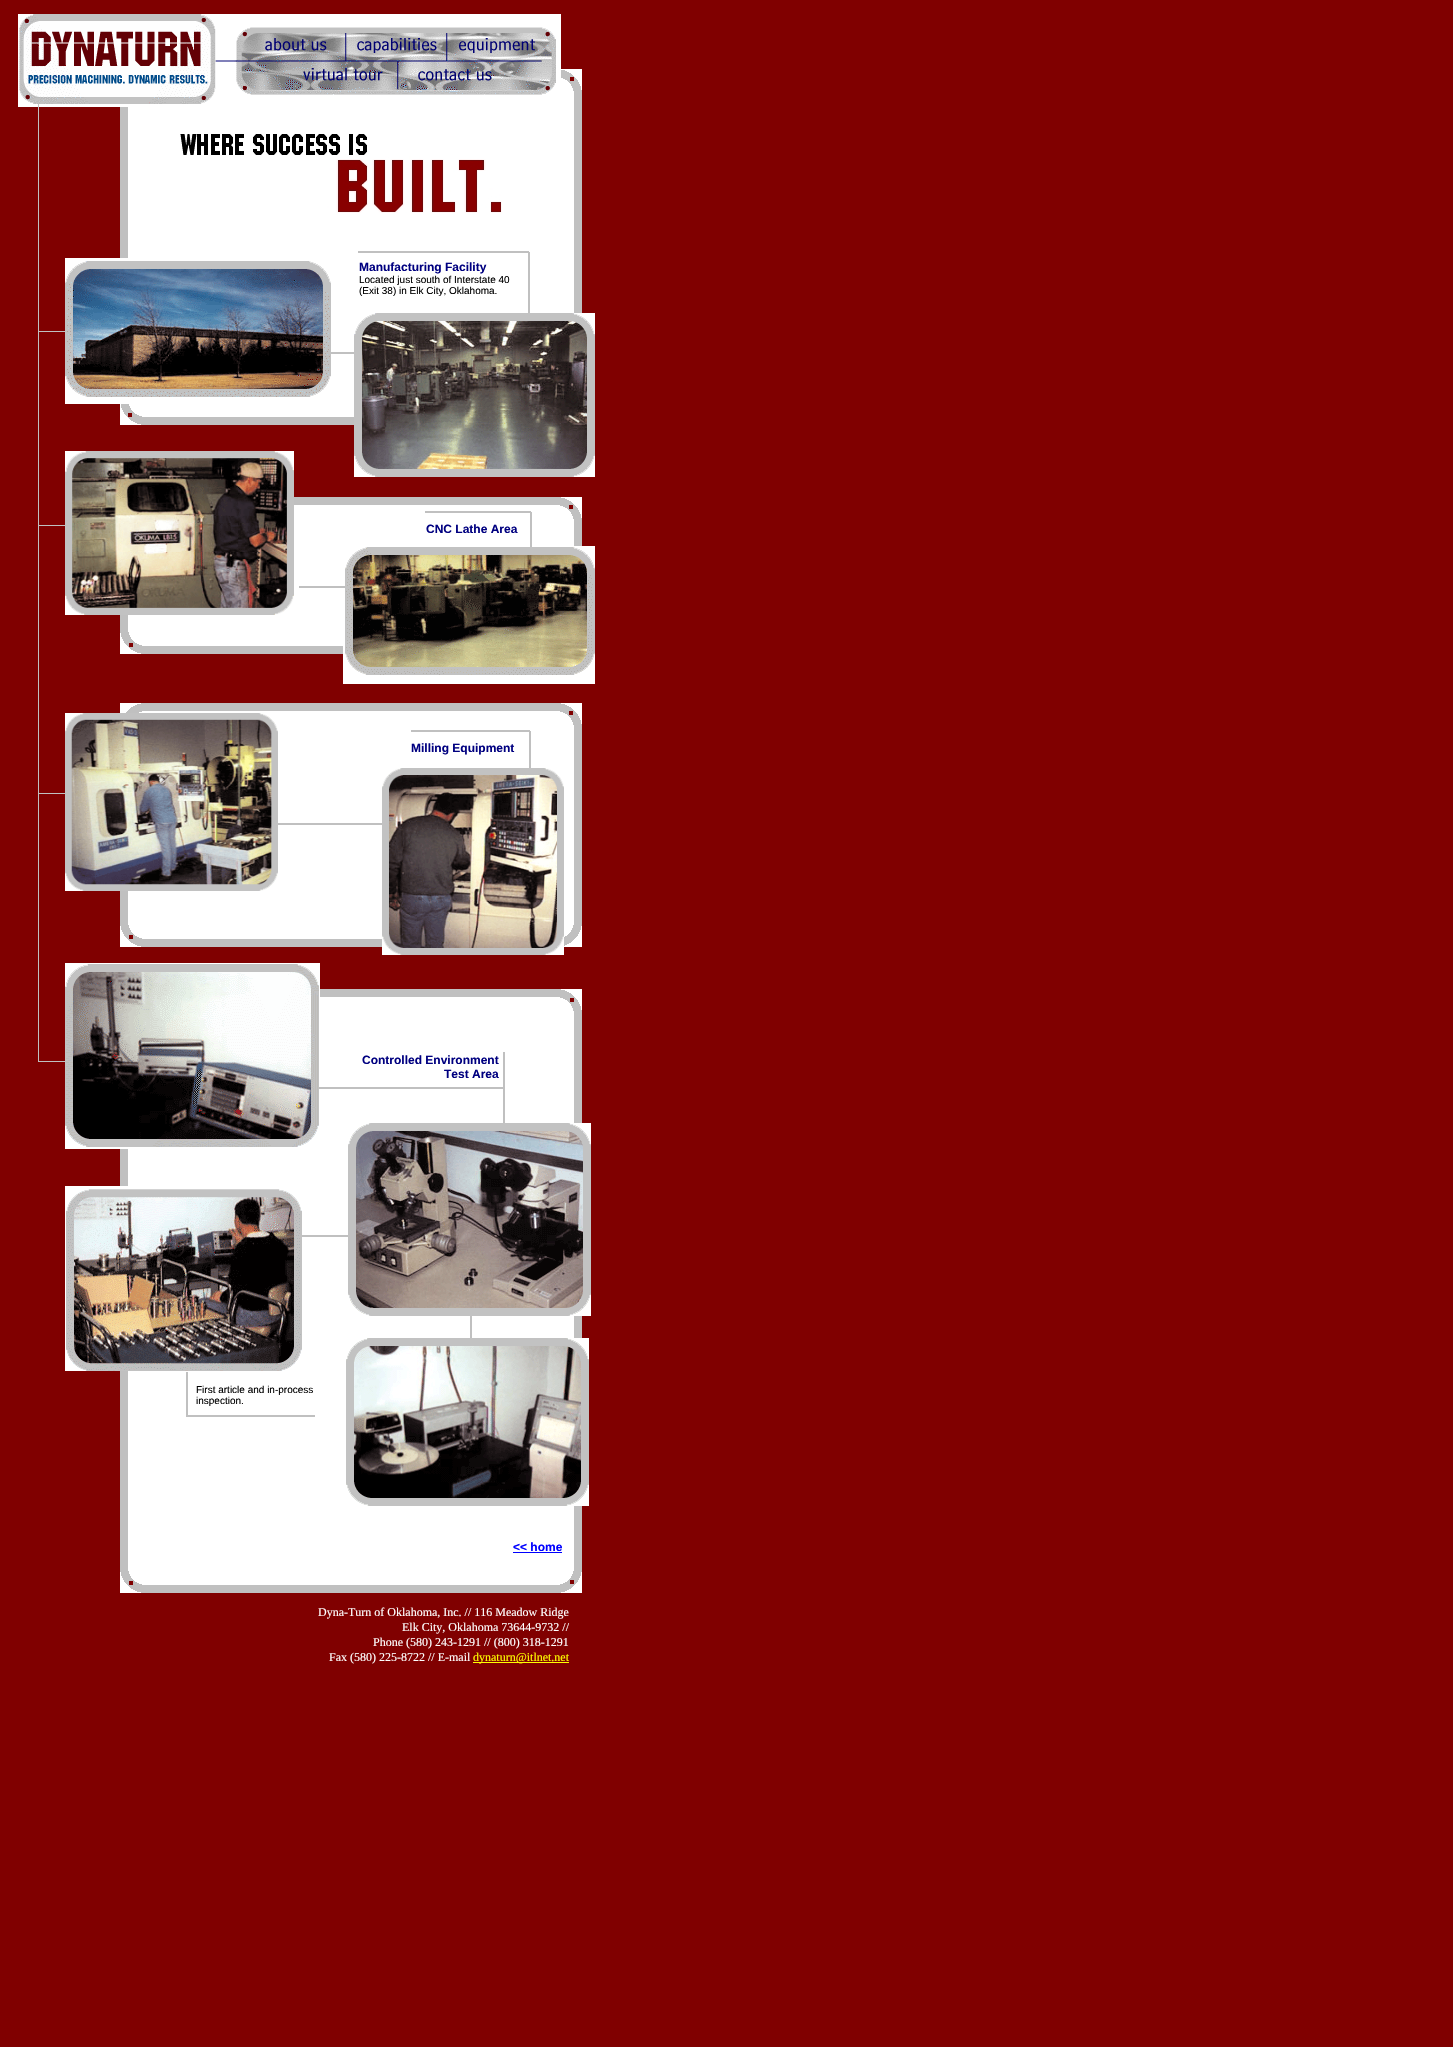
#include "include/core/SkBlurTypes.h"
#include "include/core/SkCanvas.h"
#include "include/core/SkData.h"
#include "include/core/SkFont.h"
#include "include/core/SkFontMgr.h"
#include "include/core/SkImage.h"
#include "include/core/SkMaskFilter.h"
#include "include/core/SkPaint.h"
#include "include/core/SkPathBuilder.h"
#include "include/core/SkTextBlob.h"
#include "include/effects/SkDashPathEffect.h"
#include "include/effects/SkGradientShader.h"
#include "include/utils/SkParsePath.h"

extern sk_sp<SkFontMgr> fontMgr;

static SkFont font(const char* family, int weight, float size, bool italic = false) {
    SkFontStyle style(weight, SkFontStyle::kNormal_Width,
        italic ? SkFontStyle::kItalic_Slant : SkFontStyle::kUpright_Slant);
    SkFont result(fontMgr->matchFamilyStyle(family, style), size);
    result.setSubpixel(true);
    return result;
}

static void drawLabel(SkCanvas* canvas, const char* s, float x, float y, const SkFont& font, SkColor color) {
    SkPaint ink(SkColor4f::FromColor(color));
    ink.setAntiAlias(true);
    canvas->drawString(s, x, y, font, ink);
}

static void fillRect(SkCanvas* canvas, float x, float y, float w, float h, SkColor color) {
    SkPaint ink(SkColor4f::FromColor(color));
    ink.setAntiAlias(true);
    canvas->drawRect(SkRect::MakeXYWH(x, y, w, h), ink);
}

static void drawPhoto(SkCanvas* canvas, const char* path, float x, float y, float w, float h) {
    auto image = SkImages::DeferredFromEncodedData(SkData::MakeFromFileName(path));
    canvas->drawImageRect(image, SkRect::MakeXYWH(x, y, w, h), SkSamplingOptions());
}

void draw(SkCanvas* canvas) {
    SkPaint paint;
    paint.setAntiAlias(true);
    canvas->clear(0xFF800000);
    drawPhoto(canvas, "assets/img13.png", 120, 69, 462, 356);
    drawPhoto(canvas, "assets/img1.png", 18, 14, 543, 93);
    fillRect(canvas, 570, 77, 4, 4, 0xFF800000);
    fillRect(canvas, 38, 104, 1, 957, 0xFFC0C0C0);
    drawPhoto(canvas, "assets/img2.png", 180, 134, 322, 79);
    fillRect(canvas, 528, 252, 2, 61, 0xFFC0C0C0);
    fillRect(canvas, 358, 251, 171, 2, 0xFFC0C0C0);
    drawPhoto(canvas, "assets/img3.png", 65, 258, 266, 146);
    SkFont font1 = font("Liberation Sans", 700, 12);
    drawLabel(canvas, "Manufacturing Facility", 359, 271, font1, 0xFF000080);
    SkFont font2 = font("Liberation Sans", 400, 10);
    drawLabel(canvas, "Located just south of Interstate 40", 359, 283, font2, 0xFF000000);
    drawLabel(canvas, "(Exit 38) in Elk City, Oklahoma.", 359, 294, font2, 0xFF000000);
    fillRect(canvas, 39, 331, 26, 1, 0xFFC0C0C0);
    drawPhoto(canvas, "assets/img4.png", 354, 313, 241, 164);
    fillRect(canvas, 331, 352, 23, 2, 0xFFC0C0C0);
    fillRect(canvas, 128, 413, 4, 4, 0xFF800000);
    drawPhoto(canvas, "assets/img14.png", 120, 497, 462, 157);
    drawPhoto(canvas, "assets/img5.png", 65, 451, 229, 164);
    fillRect(canvas, 569, 505, 4, 4, 0xFF800000);
    fillRect(canvas, 425, 511, 106, 2, 0xFFC0C0C0);
    fillRect(canvas, 39, 525, 26, 1, 0xFFC0C0C0);
    drawLabel(canvas, "CNC Lathe Area", 426, 533, font1, 0xFF000080);
    drawPhoto(canvas, "assets/img6.png", 343, 546, 252, 138);
    fillRect(canvas, 530, 512, 2, 35, 0xFFC0C0C0);
    fillRect(canvas, 299, 586, 46, 2, 0xFFC0C0C0);
    fillRect(canvas, 129, 643, 4, 4, 0xFF800000);
    drawPhoto(canvas, "assets/img15.png", 120, 703, 462, 244);
    drawPhoto(canvas, "assets/img7.png", 65, 713, 213, 178);
    fillRect(canvas, 411, 730, 119, 2, 0xFFC0C0C0);
    fillRect(canvas, 569, 711, 4, 4, 0xFF800000);
    drawLabel(canvas, "Milling Equipment", 411, 752, font1, 0xFF000080);
    fillRect(canvas, 529, 731, 2, 37, 0xFFC0C0C0);
    fillRect(canvas, 39, 793, 26, 1, 0xFFC0C0C0);
    drawPhoto(canvas, "assets/img8.png", 382, 768, 182, 187);
    fillRect(canvas, 278, 823, 104, 2, 0xFFC0C0C0);
    fillRect(canvas, 129, 935, 4, 4, 0xFF800000);
    drawPhoto(canvas, "assets/img16.png", 120, 989, 462, 604);
    drawPhoto(canvas, "assets/img9.png", 65, 963, 255, 186);
    fillRect(canvas, 570, 998, 4, 4, 0xFF800000);
    drawLabel(canvas, "Controlled Environment", 362, 1064, font1, 0xFF000080);
    drawLabel(canvas, "Test Area", 444, 1078, font1, 0xFF000080);
    fillRect(canvas, 503, 1052, 2, 71, 0xFFC0C0C0);
    fillRect(canvas, 319, 1087, 184, 2, 0xFFC0C0C0);
    drawPhoto(canvas, "assets/img10.png", 65, 1186, 237, 185);
    fillRect(canvas, 302, 1235, 46, 2, 0xFFC0C0C0);
    drawPhoto(canvas, "assets/img11.png", 348, 1123, 243, 193);
    fillRect(canvas, 470, 1316, 2, 22, 0xFFC0C0C0);
    fillRect(canvas, 186, 1372, 2, 45, 0xFFC0C0C0);
    drawLabel(canvas, "First article and in-process", 196, 1393, font2, 0xFF000000);
    drawLabel(canvas, "inspection.", 196, 1404, font2, 0xFF000000);
    drawPhoto(canvas, "assets/img12.png", 346, 1338, 243, 168);
    fillRect(canvas, 188, 1415, 127, 2, 0xFFC0C0C0);
    drawLabel(canvas, "<< home", 513, 1551, font1, 0xFF0000FF);
    fillRect(canvas, 513, 1552, 49, 1, 0xFF0000FF);
    fillRect(canvas, 129, 1581, 4, 4, 0xFF800000);
    fillRect(canvas, 570, 1580, 4, 4, 0xFF800000);
    fillRect(canvas, 38, 1061, 27, 1, 0xFFC0C0C0);
    SkFont font3 = font("Liberation Serif", 400, 12);
    drawLabel(canvas, "Dyna-Turn of Oklahoma, Inc. // 116 Meadow Ridge", 318, 1616, font3, 0xFFFFFFFF);
    drawLabel(canvas, "Elk City, Oklahoma 73644-9732 //", 402, 1631, font3, 0xFFFFFFFF);
    drawLabel(canvas, "Phone (580) 243-1291 // (800) 318-1291", 373, 1646, font3, 0xFFFFFFFF);
    drawLabel(canvas, "Fax (580) 225-8722 // E-mail", 329, 1661, font3, 0xFFFFFFFF);
    fillRect(canvas, 473, 1662, 96, 1, 0xFFFFFF00);
    drawLabel(canvas, "dynaturn@itlnet.net", 473, 1661, font3, 0xFFFFFF00);
}
